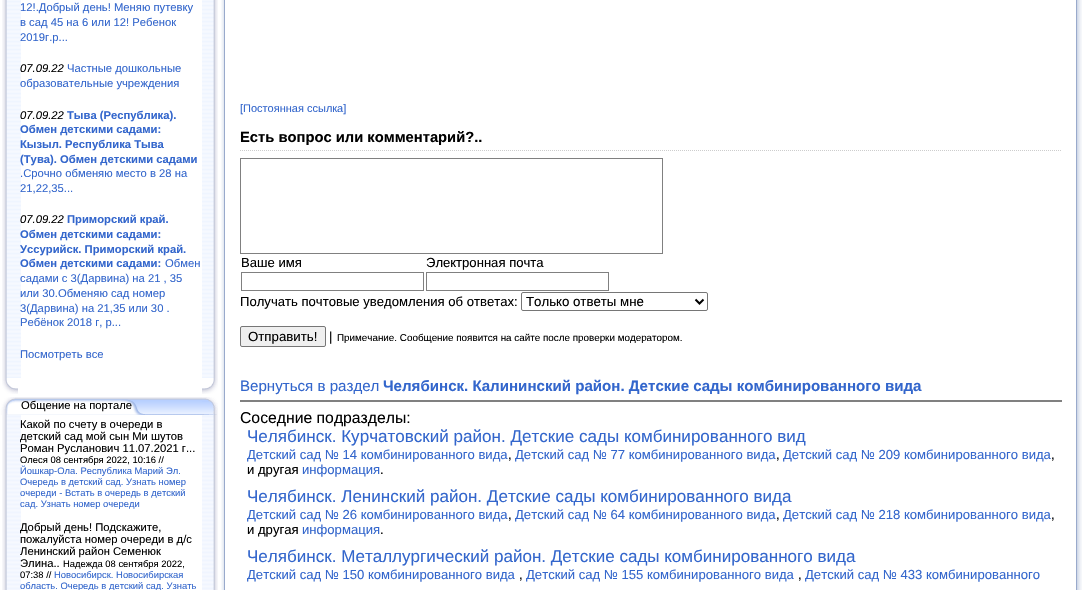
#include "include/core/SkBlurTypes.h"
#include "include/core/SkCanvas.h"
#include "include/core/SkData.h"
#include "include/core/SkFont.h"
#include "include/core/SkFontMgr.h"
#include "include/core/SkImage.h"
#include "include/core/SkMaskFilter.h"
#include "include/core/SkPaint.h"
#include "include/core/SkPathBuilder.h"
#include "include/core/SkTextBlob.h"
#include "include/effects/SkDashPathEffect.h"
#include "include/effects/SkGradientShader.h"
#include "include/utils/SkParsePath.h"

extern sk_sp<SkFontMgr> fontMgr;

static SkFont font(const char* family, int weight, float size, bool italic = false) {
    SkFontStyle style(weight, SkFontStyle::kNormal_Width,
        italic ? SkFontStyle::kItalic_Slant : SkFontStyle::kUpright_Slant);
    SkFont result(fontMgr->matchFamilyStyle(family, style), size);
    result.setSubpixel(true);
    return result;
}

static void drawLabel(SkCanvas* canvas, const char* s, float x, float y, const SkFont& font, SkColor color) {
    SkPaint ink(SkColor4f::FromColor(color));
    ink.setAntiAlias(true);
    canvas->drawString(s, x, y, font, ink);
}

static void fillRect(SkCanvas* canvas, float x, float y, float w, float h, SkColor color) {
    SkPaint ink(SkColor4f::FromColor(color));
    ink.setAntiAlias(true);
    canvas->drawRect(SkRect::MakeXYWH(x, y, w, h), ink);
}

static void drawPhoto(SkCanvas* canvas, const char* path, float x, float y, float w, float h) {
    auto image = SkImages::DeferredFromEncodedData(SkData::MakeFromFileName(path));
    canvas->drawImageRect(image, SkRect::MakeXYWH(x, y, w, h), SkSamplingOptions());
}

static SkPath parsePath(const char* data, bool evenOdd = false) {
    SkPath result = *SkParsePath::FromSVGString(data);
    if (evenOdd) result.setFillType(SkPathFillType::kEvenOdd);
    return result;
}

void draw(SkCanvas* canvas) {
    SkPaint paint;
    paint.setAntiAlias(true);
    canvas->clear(0xFFFFFFFF);
    drawPhoto(canvas, "assets/img1.png", 2, 0, 19, 378);
    SkFont font1 = font("Liberation Sans", 400, 11.25f);
    drawLabel(canvas, "12!.Добрый день! Меняю путевку", 20, 11, font1, 0xFF3366CC);
    drawLabel(canvas, "в сад 45 на 6 или 12! Ребенок", 20, 26, font1, 0xFF3366CC);
    drawLabel(canvas, "2019г.р...", 20, 41, font1, 0xFF3366CC);
    SkFont font2 = font("Liberation Sans", 400, 11.25f, true);
    drawLabel(canvas, "07.09.22", 20, 72, font2, 0xFF000000);
    drawLabel(canvas, "Частные дошкольные", 67, 72, font1, 0xFF3366CC);
    drawLabel(canvas, "образовательные учреждения", 20, 87, font1, 0xFF3366CC);
    drawLabel(canvas, "07.09.22", 20, 119, font2, 0xFF000000);
    SkFont font3 = font("Liberation Sans", 700, 11.25f);
    drawLabel(canvas, "Тыва (Республика).", 67, 119, font3, 0xFF3366CC);
    drawLabel(canvas, "Обмен детскими садами:", 20, 133, font3, 0xFF3366CC);
    drawLabel(canvas, "Кызыл. Республика Тыва", 20, 148, font3, 0xFF3366CC);
    drawLabel(canvas, "(Тува). Обмен детскими садами", 20, 163, font3, 0xFF3366CC);
    drawLabel(canvas, ".Срочно обменяю место в 28 на", 20, 177, font1, 0xFF3366CC);
    drawLabel(canvas, "21,22,35...", 20, 192, font1, 0xFF3366CC);
    drawLabel(canvas, "07.09.22", 20, 223, font2, 0xFF000000);
    drawLabel(canvas, "Приморский край.", 67, 223, font3, 0xFF3366CC);
    drawLabel(canvas, "Обмен детскими садами:", 20, 238, font3, 0xFF3366CC);
    drawLabel(canvas, "Уссурийск. Приморский край.", 20, 253, font3, 0xFF3366CC);
    drawLabel(canvas, "Обмен детскими садами:", 20, 267, font3, 0xFF3366CC);
    drawLabel(canvas, "Обмен", 165, 267, font1, 0xFF3366CC);
    drawLabel(canvas, "садами с 3(Дарвина) на 21 , 35", 20, 282, font1, 0xFF3366CC);
    drawLabel(canvas, "или 30.Обменяю сад номер", 20, 297, font1, 0xFF3366CC);
    drawLabel(canvas, "3(Дарвина) на 21,35 или 30 .", 20, 312, font1, 0xFF3366CC);
    drawLabel(canvas, "Ребёнок 2018 г, р...", 20, 326, font1, 0xFF3366CC);
    drawLabel(canvas, "Посмотреть все", 20, 358, font1, 0xFF3366CC);
    drawPhoto(canvas, "assets/img2.png", 202, 0, 16, 378);
    drawPhoto(canvas, "assets/img3.png", 2, 378, 16, 16);
    drawPhoto(canvas, "assets/img4.png", 202, 378, 16, 16);
    drawPhoto(canvas, "assets/img5.png", 15, 397, 187, 18);
    drawPhoto(canvas, "assets/img6.png", 15, 399, 130, 16);
    drawPhoto(canvas, "assets/img7.png", 0, 397, 15, 18);
    drawLabel(canvas, "Общение на портале", 21, 409, font1, 0xFF000000);
    drawPhoto(canvas, "assets/img8.png", 202, 397, 16, 18);
    drawPhoto(canvas, "assets/img9.png", 2, 415, 19, 175);
    drawLabel(canvas, "Какой по счету в очереди в", 20, 428, font1, 0xFF000000);
    drawLabel(canvas, "детский сад мой сын Ми шутов", 20, 440, font1, 0xFF000000);
    drawLabel(canvas, "Роман Русланович 11.07.2021 г...", 20, 452, font1, 0xFF000000);
    SkFont font4 = font("Liberation Sans", 400, 9.4f);
    drawLabel(canvas, "Олеся 08 сентября 2022, 10:16 //", 20, 463, font4, 0xFF000000);
    drawLabel(canvas, "Йошкар-Ола. Республика Марий Эл.", 20, 474, font4, 0xFF3366CC);
    drawLabel(canvas, "Очередь в детский сад. Узнать номер", 20, 485, font4, 0xFF3366CC);
    drawLabel(canvas, "очереди - Встать в очередь в детский", 20, 496, font4, 0xFF3366CC);
    drawLabel(canvas, "сад. Узнать номер очереди", 20, 507, font4, 0xFF3366CC);
    drawLabel(canvas, "Добрый день! Подскажите,", 20, 531, font1, 0xFF000000);
    drawLabel(canvas, "пожалуйста номер очереди в д/с", 20, 543, font1, 0xFF000000);
    drawLabel(canvas, "Ленинский район Семенюк", 20, 555, font1, 0xFF000000);
    drawLabel(canvas, "Элина..", 20, 567, font1, 0xFF000000);
    drawLabel(canvas, "Надежда 08 сентября 2022,", 63, 567, font4, 0xFF000000);
    drawLabel(canvas, "07:38 //", 20, 578, font4, 0xFF000000);
    drawLabel(canvas, "Новосибирск. Новосибирская", 54, 578, font4, 0xFF3366CC);
    drawLabel(canvas, "область. Очередь в детский сад. Узнать", 20, 589, font4, 0xFF3366CC);
    drawPhoto(canvas, "assets/img10.png", 202, 415, 16, 175);
    drawPhoto(canvas, "assets/img11.png", 221, 0, 4, 590);
    drawPhoto(canvas, "assets/img12.png", 1076, 0, 6, 590);
    SkFont font5 = font("Liberation Sans", 400, 11);
    drawLabel(canvas, "[Постоянная ссылка]", 240, 112, font5, 0xFF3366CC);
    paint.setStroke(true);
    paint.setStrokeWidth(1);
    paint.setColor(0xFFCDCDCD);
    paint.setPathEffect(SkDashPathEffect::Make({{1, 1}}, 0));
    canvas->drawPath(parsePath("M240 150.5H1062"), paint);
    paint.setPathEffect(nullptr);
    SkFont font6 = font("Liberation Sans", 700, 14.75f);
    drawLabel(canvas, "Есть вопрос или комментарий?..", 240, 142, font6, 0xFF000000);
    paint.setColor(0xFF808080);
    canvas->drawRect(SkRect::MakeXYWH(240.5f, 158.5f, 422, 95), paint);
    SkFont font7 = font("Liberation Sans", 400, 13.1f);
    drawLabel(canvas, "Ваше имя", 241, 267, font7, 0xFF000000);
    drawLabel(canvas, "Электронная почта", 426, 267, font7, 0xFF000000);
    canvas->drawRect(SkRect::MakeXYWH(241.5f, 272.5f, 182, 18), paint);
    canvas->drawRect(SkRect::MakeXYWH(426.5f, 272.5f, 182, 18), paint);
    drawLabel(canvas, "Получать почтовые уведомления об ответах:", 240, 306, font7, 0xFF000000);
    paint.setColor(0xFF767676);
    canvas->drawRoundRect(SkRect::MakeXYWH(521.5f, 292.5f, 186, 18), 1.5f, 1.5f, paint);
    paint.setStrokeWidth(2);
    paint.setColor(0xFF000000);
    canvas->drawPath(parsePath("M695.5 299.5L699.5 303.5L703.5 299.5"), paint);
    SkFont font8 = font("Liberation Sans", 400, 13.25f);
    drawLabel(canvas, "Только ответы мне", 526, 306, font8, 0xFF000000);
    paint.setStroke(false);
    paint.setColor(0xFFEFEFEF);
    canvas->drawRoundRect(SkRect::MakeXYWH(240.5f, 326.5f, 85, 20), 1.5f, 1.5f, paint);
    paint.setStroke(true);
    paint.setStrokeWidth(1);
    paint.setColor(0xFF767676);
    canvas->drawRoundRect(SkRect::MakeXYWH(240.5f, 326.5f, 85, 20), 1.5f, 1.5f, paint);
    drawLabel(canvas, "Отправить!", 248, 341, font8, 0xFF000000);
    drawLabel(canvas, "|", 329, 341, font7, 0xFF000000);
    SkFont font9 = font("Liberation Sans", 400, 9.85f);
    drawLabel(canvas, "Примечание. Сообщение появится на сайте после проверки модератором.", 337, 341, font9, 0xFF000000);
    SkFont font10 = font("Liberation Sans", 400, 15.1f);
    drawLabel(canvas, "Вернуться в раздел", 240, 391, font10, 0xFF3366CC);
    SkFont font11 = font("Liberation Sans", 700, 15.1f);
    drawLabel(canvas, "Челябинск. Калининский район. Детские сады комбинированного вида", 383, 391, font11, 0xFF3366CC);
    fillRect(canvas, 240, 400, 822, 2, 0xFF808080);
    SkFont font12 = font("Liberation Sans", 400, 15.75f);
    drawLabel(canvas, "Соседние подразделы:", 240, 423, font12, 0xFF000000);
    SkFont font13 = font("Liberation Sans", 400, 17.05f);
    drawLabel(canvas, "Челябинск. Курчатовский район. Детские сады комбинированного вид", 247, 442, font13, 0xFF3366CC);
    drawLabel(canvas, "Детский сад № 14 комбинированного вида", 247, 459, font7, 0xFF3366CC);
    drawLabel(canvas, ",", 508, 459, font7, 0xFF000000);
    drawLabel(canvas, "Детский сад № 77 комбинированного вида", 515, 459, font7, 0xFF3366CC);
    drawLabel(canvas, ",", 776, 459, font7, 0xFF000000);
    drawLabel(canvas, "Детский сад № 209 комбинированного вида", 783, 459, font7, 0xFF3366CC);
    drawLabel(canvas, ",", 1051, 459, font7, 0xFF000000);
    drawLabel(canvas, "и другая", 247, 474, font7, 0xFF000000);
    drawLabel(canvas, "информация", 302, 474, font7, 0xFF3366CC);
    drawLabel(canvas, ".", 380, 474, font7, 0xFF000000);
    drawLabel(canvas, "Челябинск. Ленинский район. Детские сады комбинированного вида", 247, 502, font13, 0xFF3366CC);
    drawLabel(canvas, "Детский сад № 26 комбинированного вида", 247, 519, font7, 0xFF3366CC);
    drawLabel(canvas, ",", 508, 519, font7, 0xFF000000);
    drawLabel(canvas, "Детский сад № 64 комбинированного вида", 515, 519, font7, 0xFF3366CC);
    drawLabel(canvas, ",", 776, 519, font7, 0xFF000000);
    drawLabel(canvas, "Детский сад № 218 комбинированного вида", 783, 519, font7, 0xFF3366CC);
    drawLabel(canvas, ",", 1051, 519, font7, 0xFF000000);
    drawLabel(canvas, "и другая", 247, 534, font7, 0xFF000000);
    drawLabel(canvas, "информация", 302, 534, font7, 0xFF3366CC);
    drawLabel(canvas, ".", 380, 534, font7, 0xFF000000);
    drawLabel(canvas, "Челябинск. Металлургический район. Детские сады комбинированного вида", 247, 562, font13, 0xFF3366CC);
    drawLabel(canvas, "Детский сад № 150 комбинированного вида", 247, 579, font7, 0xFF3366CC);
    drawLabel(canvas, ",", 519, 579, font7, 0xFF000000);
    drawLabel(canvas, "Детский сад № 155 комбинированного вида", 526, 579, font7, 0xFF3366CC);
    drawLabel(canvas, ",", 798, 579, font7, 0xFF000000);
    drawLabel(canvas, "Детский сад № 433 комбинированного", 805, 579, font7, 0xFF3366CC);
}
